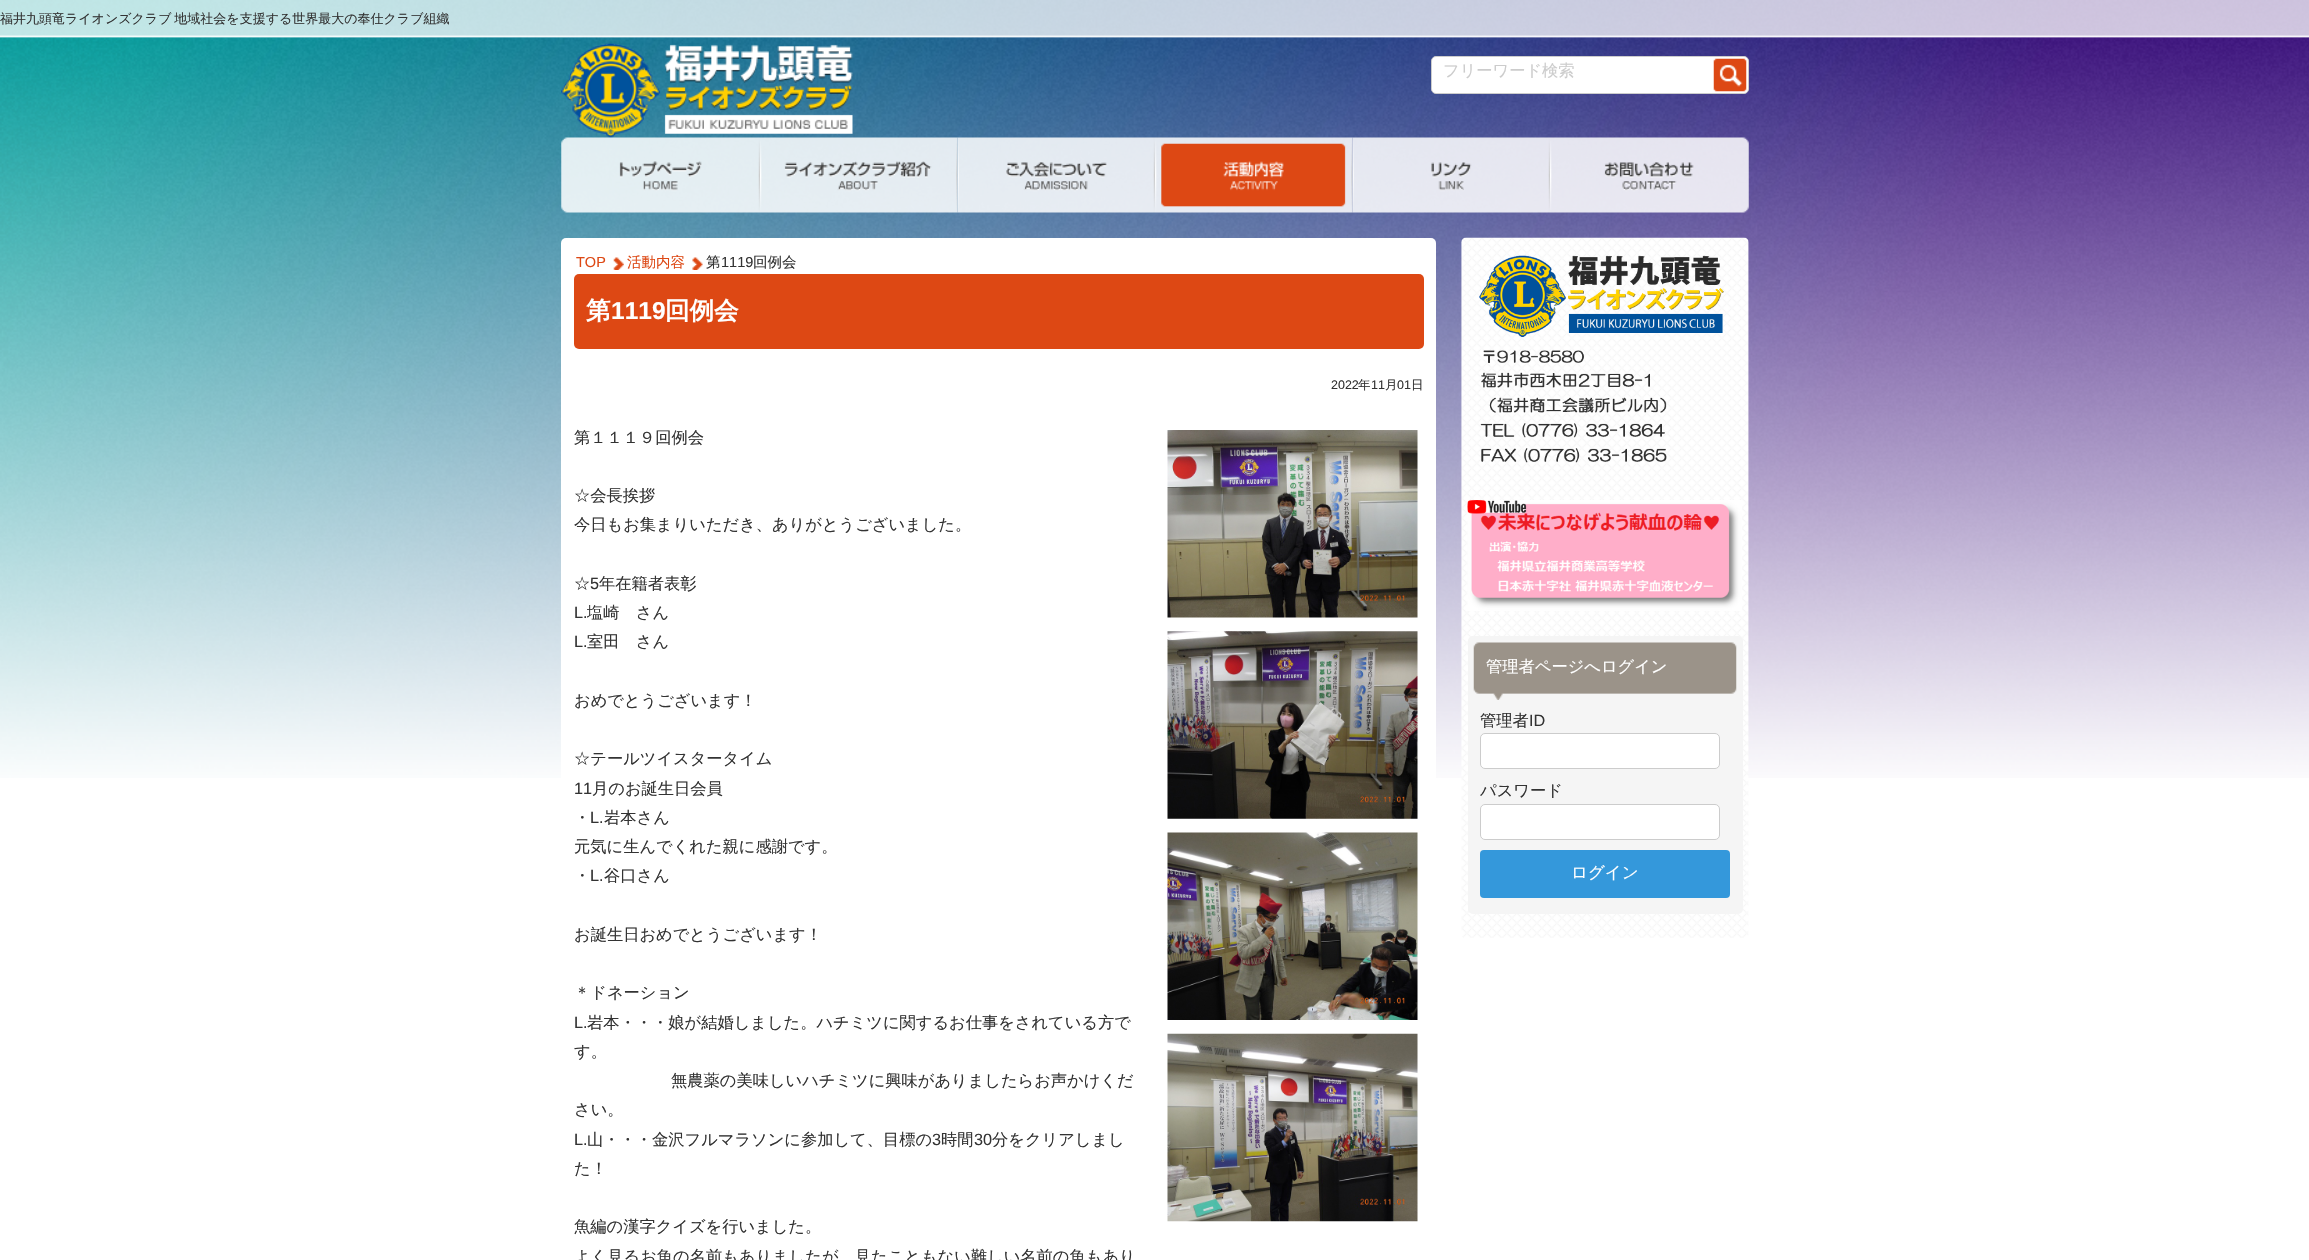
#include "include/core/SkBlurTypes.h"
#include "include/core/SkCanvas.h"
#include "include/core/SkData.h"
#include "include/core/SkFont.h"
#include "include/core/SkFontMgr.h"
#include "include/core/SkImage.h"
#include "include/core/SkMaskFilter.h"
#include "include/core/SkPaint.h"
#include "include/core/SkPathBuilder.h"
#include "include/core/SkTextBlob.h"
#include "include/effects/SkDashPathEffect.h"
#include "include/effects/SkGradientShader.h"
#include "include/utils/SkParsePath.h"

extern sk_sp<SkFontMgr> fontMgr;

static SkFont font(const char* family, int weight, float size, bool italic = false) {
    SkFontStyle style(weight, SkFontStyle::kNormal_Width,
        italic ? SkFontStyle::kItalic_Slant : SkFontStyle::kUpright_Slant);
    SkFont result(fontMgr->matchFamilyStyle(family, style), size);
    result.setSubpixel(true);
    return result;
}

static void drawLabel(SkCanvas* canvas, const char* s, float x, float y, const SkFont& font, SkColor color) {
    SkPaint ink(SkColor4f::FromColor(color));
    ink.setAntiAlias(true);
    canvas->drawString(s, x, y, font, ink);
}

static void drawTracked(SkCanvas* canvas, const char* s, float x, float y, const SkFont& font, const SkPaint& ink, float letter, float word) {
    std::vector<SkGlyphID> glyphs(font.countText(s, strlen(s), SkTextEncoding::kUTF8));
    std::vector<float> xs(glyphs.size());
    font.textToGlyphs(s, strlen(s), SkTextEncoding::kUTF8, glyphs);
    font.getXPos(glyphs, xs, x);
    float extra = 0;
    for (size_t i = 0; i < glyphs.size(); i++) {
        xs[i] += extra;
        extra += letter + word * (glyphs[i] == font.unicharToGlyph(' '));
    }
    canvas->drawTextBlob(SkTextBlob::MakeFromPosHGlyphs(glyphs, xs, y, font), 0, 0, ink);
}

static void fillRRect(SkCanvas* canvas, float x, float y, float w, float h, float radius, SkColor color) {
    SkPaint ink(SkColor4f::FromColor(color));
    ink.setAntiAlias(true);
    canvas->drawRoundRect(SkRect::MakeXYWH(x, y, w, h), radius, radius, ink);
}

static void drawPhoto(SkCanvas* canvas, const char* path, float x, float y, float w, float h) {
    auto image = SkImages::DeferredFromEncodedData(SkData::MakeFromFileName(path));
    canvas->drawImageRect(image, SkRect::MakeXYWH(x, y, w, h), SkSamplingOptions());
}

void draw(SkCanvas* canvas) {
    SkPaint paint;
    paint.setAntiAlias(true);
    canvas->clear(0xFFFFFFFF);
    drawPhoto(canvas, "assets/img1.png", 0, 0, 2309, 778);
    drawPhoto(canvas, "assets/img2.png", 0, 0, 2309, 38);
    SkFont font1 = font("WenQuanYi Zen Hei", 500, 13);
    paint.setColor(0xFF333333);
    drawTracked(canvas, "福井九頭竜ライオンズクラブ 地域社会を支援する世界最大の奉仕クラブ組織", 0, 23, font1, paint, 0, -1);
    drawPhoto(canvas, "assets/img3.png", 561, 43, 292, 95);
    paint.setColor(0xFFFFFFFF);
    canvas->drawRoundRect(SkRect::MakeXYWH(1431.5f, 56.5f, 317, 37), 4.5f, 4.5f, paint);
    paint.setStroke(true);
    paint.setStrokeWidth(1);
    paint.setColor(0xFFCCCCCC);
    canvas->drawRoundRect(SkRect::MakeXYWH(1431.5f, 56.5f, 317, 37), 4.5f, 4.5f, paint);
    SkFont font2 = font("WenQuanYi Zen Hei", 500, 16.25f);
    drawLabel(canvas, "フリーワード検索", 1443, 76, font2, 0xFFCCCCCC);
    drawPhoto(canvas, "assets/img4.png", 1713, 58, 34, 34);
    drawPhoto(canvas, "assets/img5.png", 561, 137, 199, 76);
    drawPhoto(canvas, "assets/img6.png", 760, 137, 198, 76);
    drawPhoto(canvas, "assets/img7.png", 957, 137, 198, 76);
    drawPhoto(canvas, "assets/img8.png", 1155, 137, 198, 76);
    drawPhoto(canvas, "assets/img9.png", 1352, 137, 198, 76);
    drawPhoto(canvas, "assets/img10.png", 1550, 137, 199, 76);
    fillRRect(canvas, 561, 238, 875, 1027, 5, 0xFFFFFFFF);
    SkFont font3 = font("Liberation Sans", 400, 14.5f);
    drawLabel(canvas, "TOP", 576, 267, font3, 0xFFDD4814);
    drawPhoto(canvas, "assets/img11.png", 613, 257, 11, 13);
    SkFont font4 = font("WenQuanYi Zen Hei", 500, 14.5f);
    drawLabel(canvas, "活動内容", 627, 267, font4, 0xFFDD4814);
    drawPhoto(canvas, "assets/img12.png", 692, 257, 11, 13);
    drawLabel(canvas, "第", 706, 267, font4, 0xFF333333);
    drawLabel(canvas, "1119", 721, 267, font3, 0xFF333333);
    drawLabel(canvas, "回例会", 753, 267, font4, 0xFF333333);
    fillRRect(canvas, 574, 274, 850, 75, 5, 0xFFDD4814);
    SkFont font5 = font("WenQuanYi Zen Hei", 700, 24.5f);
    drawLabel(canvas, "第", 586, 319, font5, 0xFFFFFFFF);
    SkFont font6 = font("Liberation Sans", 700, 24.5f);
    drawLabel(canvas, "1119", 611, 319, font6, 0xFFFFFFFF);
    drawLabel(canvas, "回例会", 665, 319, font5, 0xFFFFFFFF);
    SkFont font7 = font("Liberation Sans", 400, 12.5f);
    drawLabel(canvas, "2022", 1331, 389, font7, 0xFF333333);
    SkFont font8 = font("WenQuanYi Zen Hei", 500, 12.5f);
    drawLabel(canvas, "年", 1358, 389, font8, 0xFF333333);
    drawLabel(canvas, "11", 1371, 389, font7, 0xFF333333);
    drawLabel(canvas, "月", 1385, 389, font8, 0xFF333333);
    drawLabel(canvas, "01", 1397, 389, font7, 0xFF333333);
    drawLabel(canvas, "日", 1411, 389, font8, 0xFF333333);
    drawLabel(canvas, "第１１１９回例会", 574, 443, font2, 0xFF333333);
    drawLabel(canvas, "☆会長挨拶", 574, 501, font2, 0xFF333333);
    drawLabel(canvas, "今日もお集まりいただき、ありがとうございました。", 574, 530, font2, 0xFF333333);
    drawLabel(canvas, "☆", 574, 589, font2, 0xFF333333);
    SkFont font9 = font("Liberation Sans", 400, 16.25f);
    drawLabel(canvas, "5", 590, 589, font9, 0xFF333333);
    drawLabel(canvas, "年在籍者表彰", 599, 589, font2, 0xFF333333);
    drawLabel(canvas, "L.", 574, 618, font9, 0xFF333333);
    drawLabel(canvas, "塩崎　さん", 587, 618, font2, 0xFF333333);
    drawLabel(canvas, "L.", 574, 647, font9, 0xFF333333);
    drawLabel(canvas, "室田　さん", 587, 647, font2, 0xFF333333);
    drawLabel(canvas, "おめでとうございます！", 574, 706, font2, 0xFF333333);
    drawLabel(canvas, "☆テールツイスタータイム", 574, 764, font2, 0xFF333333);
    drawLabel(canvas, "11", 574, 794, font9, 0xFF333333);
    drawLabel(canvas, "月のお誕生日会員", 592, 794, font2, 0xFF333333);
    drawLabel(canvas, "・", 574, 823, font2, 0xFF333333);
    drawLabel(canvas, "L.", 590, 823, font9, 0xFF333333);
    drawLabel(canvas, "岩本さん", 604, 823, font2, 0xFF333333);
    drawLabel(canvas, "元気に生んでくれた親に感謝です。", 574, 852, font2, 0xFF333333);
    drawLabel(canvas, "・", 574, 881, font2, 0xFF333333);
    drawLabel(canvas, "L.", 590, 881, font9, 0xFF333333);
    drawLabel(canvas, "谷口さん", 604, 881, font2, 0xFF333333);
    drawLabel(canvas, "お誕生日おめでとうございます！", 574, 940, font2, 0xFF333333);
    drawLabel(canvas, "＊ドネーション", 574, 998, font2, 0xFF333333);
    drawLabel(canvas, "L.", 574, 1028, font9, 0xFF333333);
    drawLabel(canvas, "岩本・・・娘が結婚しました。ハチミツに関するお仕事をされている方で", 587, 1028, font2, 0xFF333333);
    drawLabel(canvas, "す。", 574, 1057, font2, 0xFF333333);
    drawLabel(canvas, "無農薬の美味しいハチミツに興味がありましたらお声かけくだ", 671, 1086, font2, 0xFF333333);
    drawLabel(canvas, "さい。", 574, 1115, font2, 0xFF333333);
    drawLabel(canvas, "L.", 574, 1145, font9, 0xFF333333);
    drawLabel(canvas, "山・・・金沢フルマラソンに参加して、目標の", 587, 1145, font2, 0xFF333333);
    drawLabel(canvas, "3", 932, 1145, font9, 0xFF333333);
    drawLabel(canvas, "時間", 941, 1145, font2, 0xFF333333);
    drawLabel(canvas, "30", 974, 1145, font9, 0xFF333333);
    drawLabel(canvas, "分をクリアしまし", 992, 1145, font2, 0xFF333333);
    drawLabel(canvas, "た！", 574, 1174, font2, 0xFF333333);
    drawLabel(canvas, "魚編の漢字クイズを行いました。", 574, 1232, font2, 0xFF333333);
    drawLabel(canvas, "よく見るお魚の名前もありましたが、見たこともない難しい名前の魚もあり", 574, 1262, font2, 0xFF333333);
    drawPhoto(canvas, "assets/img13.png", 1167, 430, 251, 188);
    drawPhoto(canvas, "assets/img14.png", 1167, 631, 251, 188);
    drawPhoto(canvas, "assets/img15.png", 1167, 832, 251, 188);
    drawPhoto(canvas, "assets/img16.png", 1167, 1033, 251, 189);
    drawPhoto(canvas, "assets/img17.png", 1461, 237, 288, 701);
    drawPhoto(canvas, "assets/img18.png", 1479, 255, 245, 208);
    drawPhoto(canvas, "assets/img19.png", 1467, 500, 275, 111);
    fillRRect(canvas, 1468, 636, 275, 278, 5, 0xFFF5F5F5);
    drawPhoto(canvas, "assets/img20.png", 1473, 642, 264, 58);
    drawLabel(canvas, "管理者ページへログイン", 1486, 672, font2, 0xFFFFFFFF);
    drawLabel(canvas, "管理者", 1480, 726, font2, 0xFF333333);
    drawLabel(canvas, "ID", 1529, 726, font9, 0xFF333333);
    paint.setStroke(false);
    paint.setColor(0xFFFFFFFF);
    canvas->drawRoundRect(SkRect::MakeXYWH(1480.5f, 733.5f, 239, 35), 4.5f, 4.5f, paint);
    paint.setStroke(true);
    paint.setColor(0xFFCCCCCC);
    canvas->drawRoundRect(SkRect::MakeXYWH(1480.5f, 733.5f, 239, 35), 4.5f, 4.5f, paint);
    drawLabel(canvas, "パスワード", 1480, 796, font2, 0xFF333333);
    paint.setStroke(false);
    paint.setColor(0xFFFFFFFF);
    canvas->drawRoundRect(SkRect::MakeXYWH(1480.5f, 804.5f, 239, 35), 4.5f, 4.5f, paint);
    paint.setStroke(true);
    paint.setColor(0xFFCCCCCC);
    canvas->drawRoundRect(SkRect::MakeXYWH(1480.5f, 804.5f, 239, 35), 4.5f, 4.5f, paint);
    fillRRect(canvas, 1480, 850, 250, 48, 4, 0xFF3498DB);
    SkFont font10 = font("WenQuanYi Zen Hei", 500, 16.5f);
    drawLabel(canvas, "ログイン", 1571, 878, font10, 0xFFFFFFFF);
}
